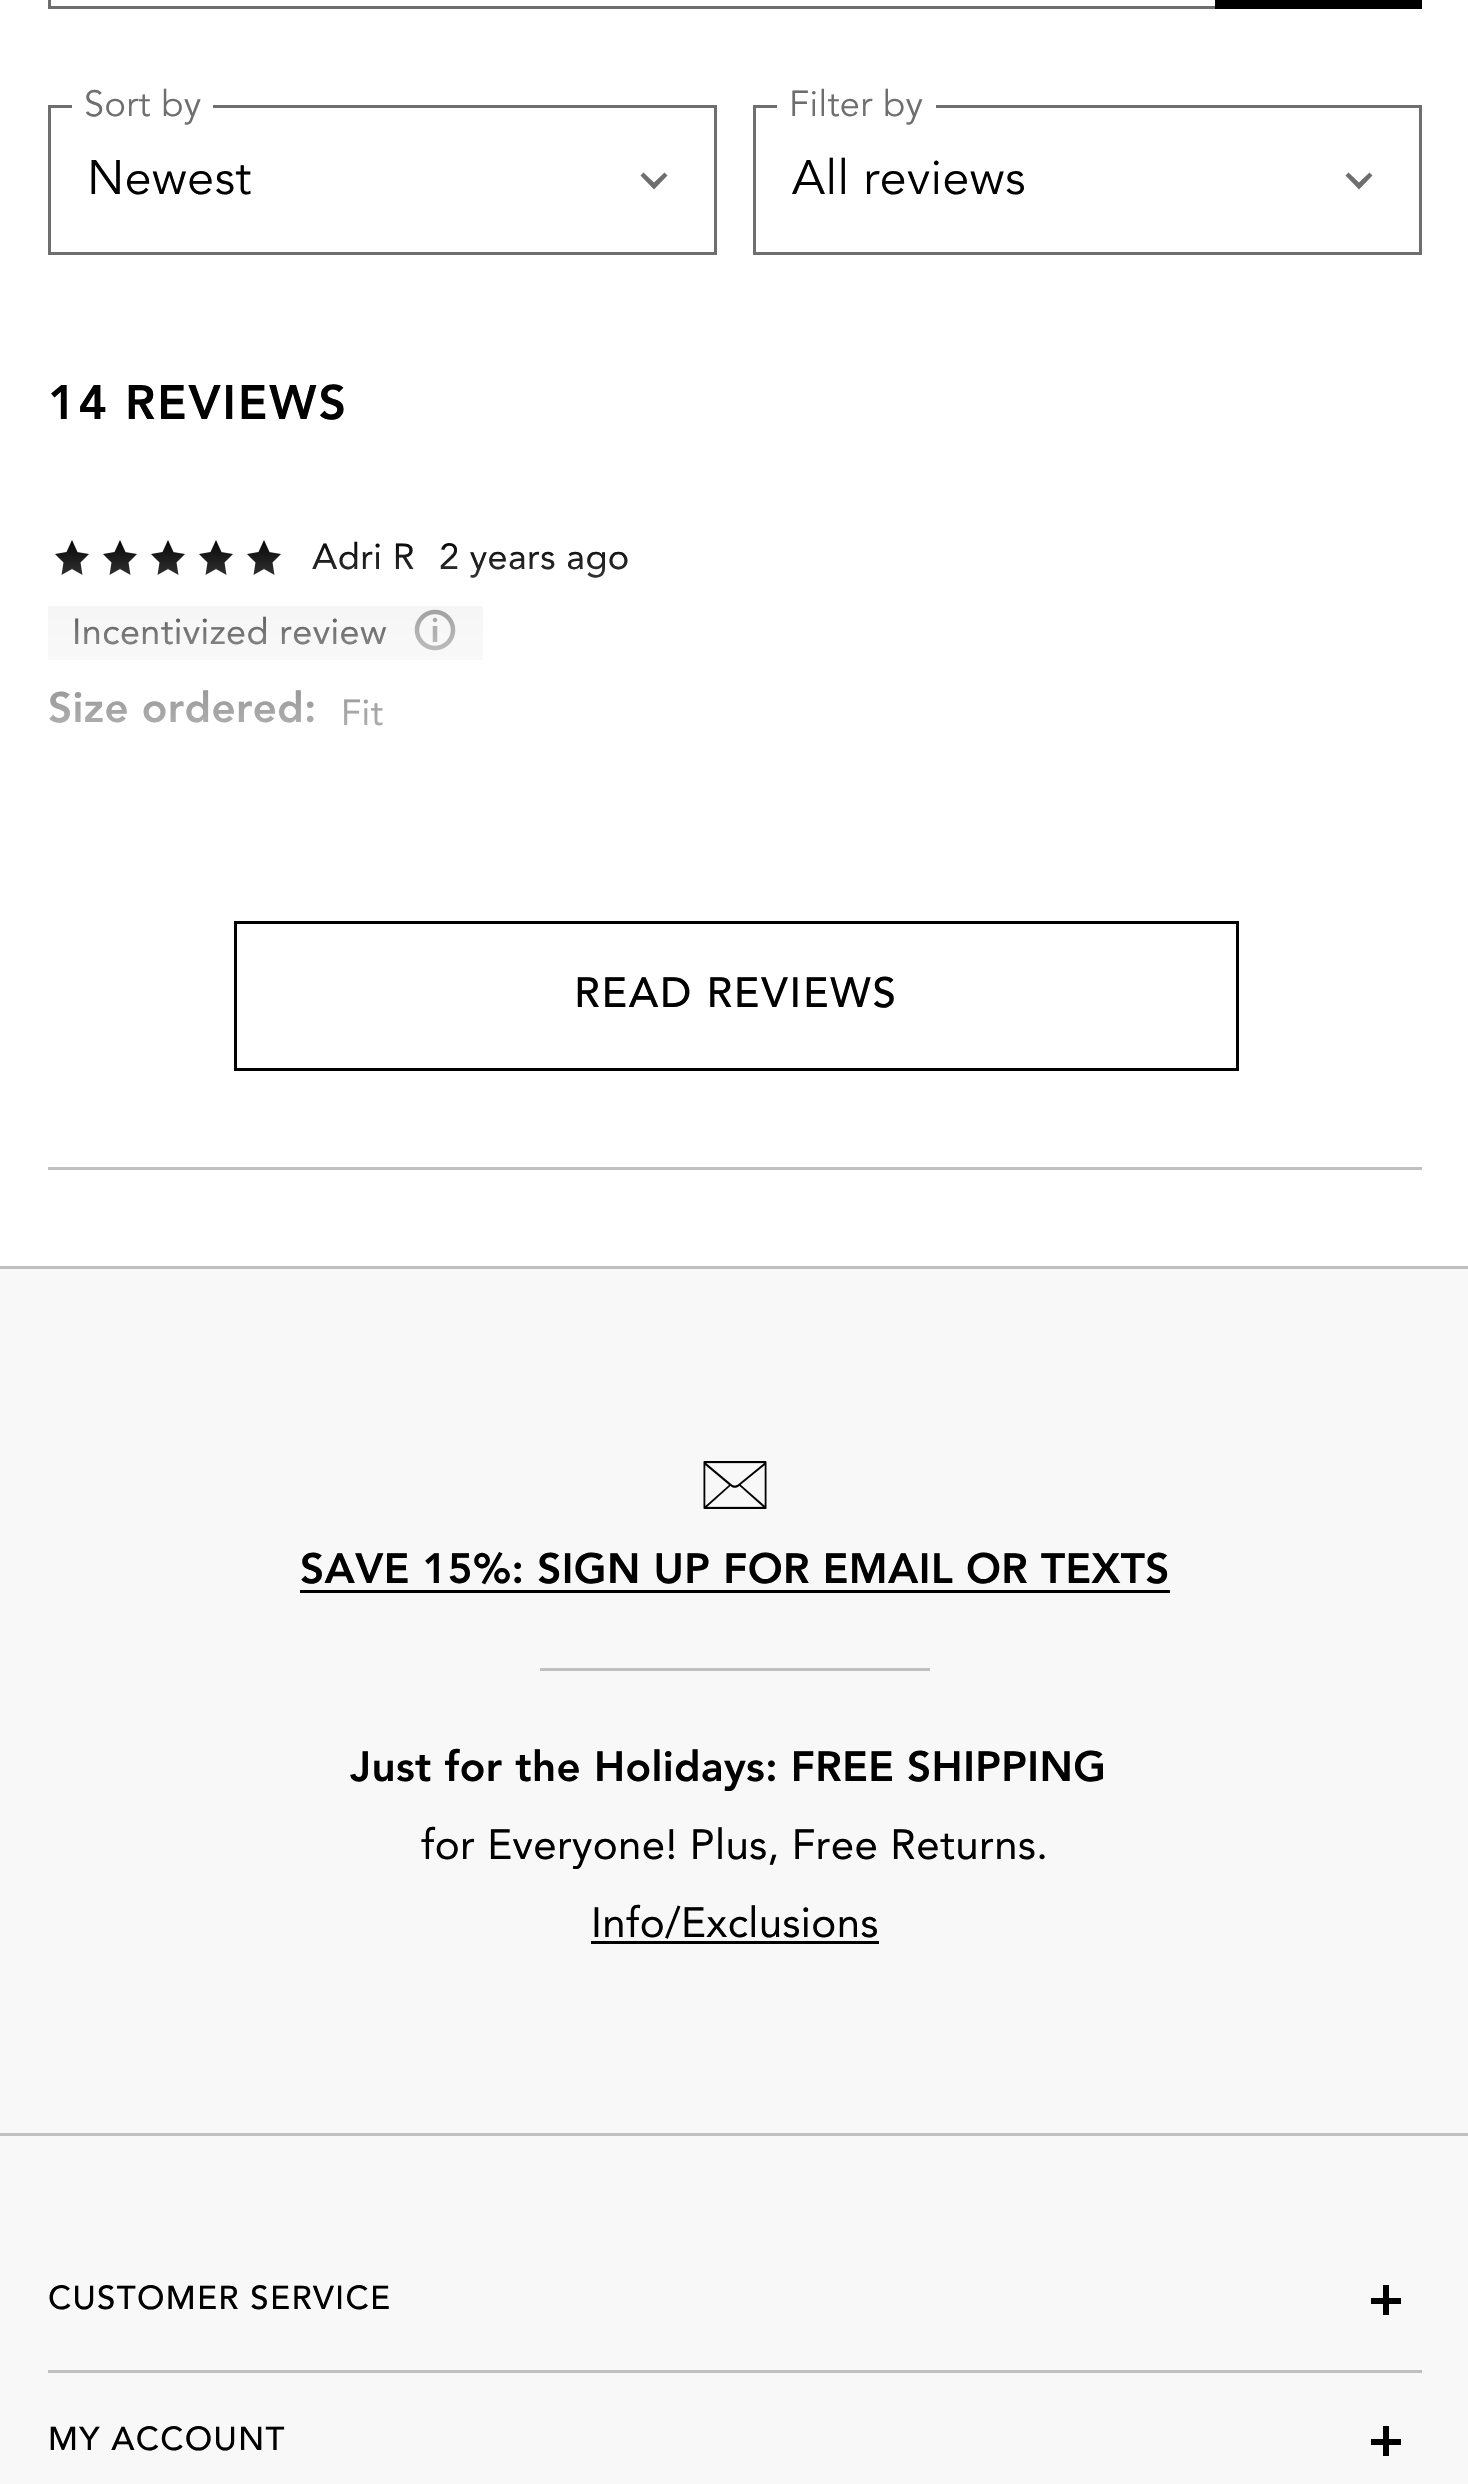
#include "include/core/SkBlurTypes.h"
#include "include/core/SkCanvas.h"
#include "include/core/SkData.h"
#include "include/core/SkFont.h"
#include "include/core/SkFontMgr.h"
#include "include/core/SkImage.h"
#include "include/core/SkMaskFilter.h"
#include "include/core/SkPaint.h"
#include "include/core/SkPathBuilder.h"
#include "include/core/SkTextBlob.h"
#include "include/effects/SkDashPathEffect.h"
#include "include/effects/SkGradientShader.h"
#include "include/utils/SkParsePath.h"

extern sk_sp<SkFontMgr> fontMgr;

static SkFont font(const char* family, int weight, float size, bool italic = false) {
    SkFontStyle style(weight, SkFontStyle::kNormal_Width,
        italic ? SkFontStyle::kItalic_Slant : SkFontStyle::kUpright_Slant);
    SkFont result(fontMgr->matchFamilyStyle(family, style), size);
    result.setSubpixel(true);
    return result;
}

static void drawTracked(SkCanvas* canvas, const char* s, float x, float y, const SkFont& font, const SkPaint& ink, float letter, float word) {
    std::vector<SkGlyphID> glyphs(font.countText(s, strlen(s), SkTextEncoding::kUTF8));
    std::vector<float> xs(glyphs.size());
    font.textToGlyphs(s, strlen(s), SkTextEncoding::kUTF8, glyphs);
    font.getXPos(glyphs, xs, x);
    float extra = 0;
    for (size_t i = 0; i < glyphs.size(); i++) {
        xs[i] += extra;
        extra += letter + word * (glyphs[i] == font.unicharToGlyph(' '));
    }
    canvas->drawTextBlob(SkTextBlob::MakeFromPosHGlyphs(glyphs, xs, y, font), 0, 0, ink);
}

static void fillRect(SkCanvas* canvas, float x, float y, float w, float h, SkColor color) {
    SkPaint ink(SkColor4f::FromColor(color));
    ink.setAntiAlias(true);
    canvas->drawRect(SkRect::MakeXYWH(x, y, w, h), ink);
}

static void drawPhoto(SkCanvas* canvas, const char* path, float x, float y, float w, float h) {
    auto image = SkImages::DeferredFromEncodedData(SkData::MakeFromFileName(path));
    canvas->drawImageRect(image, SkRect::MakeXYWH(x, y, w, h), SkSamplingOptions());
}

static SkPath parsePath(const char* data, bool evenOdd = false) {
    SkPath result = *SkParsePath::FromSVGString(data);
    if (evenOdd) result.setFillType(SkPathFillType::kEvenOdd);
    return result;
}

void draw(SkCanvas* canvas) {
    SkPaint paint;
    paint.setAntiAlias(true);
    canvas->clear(0xFFFFFFFF);
    fillRect(canvas, 48, 1167, 1374, 3, 0xFFC0C0C0);
    paint.setStroke(true);
    paint.setStrokeWidth(3);
    paint.setColor(0xFF6E6E6E);
    canvas->drawRect(SkRect::MakeXYWH(49.5f, -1.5f, 1371, 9), paint);
    fillRect(canvas, 1215, 0, 207, 9, 0xFF000000);
    paint.setStroke(false);
    canvas->drawPath(parsePath("M640.5 175.5L643.5 172.5L654 182.5L664.5 172.5L667.5 175.5L654 189.5Z", true), paint);
    paint.setStroke(true);
    canvas->drawRect(SkRect::MakeXYWH(49.5f, 106.5f, 666, 147), paint);
    fillRect(canvas, 72, 105, 141, 3, 0xFFFFFFFF);
    SkFont font1 = font("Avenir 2", 400, 36);
    paint.setStroke(false);
    drawTracked(canvas, "Sort by", 84, 116, font1, paint, 0.4f, 0);
    SkFont font2 = font("Avenir 2", 400, 48);
    paint.setColor(0xFF000000);
    drawTracked(canvas, "Newest", 87, 194, font2, paint, 0.5f, 0);
    paint.setColor(0xFF6E6E6E);
    canvas->drawPath(parsePath("M1345.5 175.5L1348.5 172.5L1359 182.5L1369.5 172.5L1372.5 175.5L1359 189.5Z", true), paint);
    paint.setStroke(true);
    canvas->drawRect(SkRect::MakeXYWH(754.5f, 106.5f, 666, 147), paint);
    fillRect(canvas, 777, 105, 159, 3, 0xFFFFFFFF);
    paint.setStroke(false);
    drawTracked(canvas, "Filter by", 789, 116, font1, paint, 0.4f, 0);
    paint.setColor(0xFF000000);
    drawTracked(canvas, "All reviews", 792, 194, font2, paint, 0.5f, 0);
    SkFont font3 = font("Avenir", 900, 48);
    drawTracked(canvas, "14 REVIEWS", 48, 419, font3, paint, 2, 0);
    canvas->drawPath(parsePath("M77.5 552L72 540L66.5 552L55 554L63.5 562.5L61.5 575L72 569L82.5 575L80.5 562.5L89 554L77 552Z", true), paint);
    canvas->drawPath(parsePath("M125.5 552L120 540L114.5 552L103 554L111.5 562.5L109.5 575L120 569L130.5 575L128.5 562.5L137 554L125 552Z", true), paint);
    canvas->drawPath(parsePath("M173.5 552L168 540L162.5 552L151 554L159.5 562.5L157.5 575L168 569L178.5 575L176.5 562.5L185 554L173 552Z", true), paint);
    canvas->drawPath(parsePath("M221.5 552L216 540L210.5 552L199 554L207.5 562.5L205.5 575L216 569L226.5 575L224.5 562.5L233 554L221 552Z", true), paint);
    canvas->drawPath(parsePath("M269.5 552L264 540L258.5 552L247 554L255.5 562.5L253.5 575L264 569L274.5 575L272.5 562.5L281 554L269 552Z", true), paint);
    SkFont font4 = font("Avenir", 400, 36);
    drawTracked(canvas, "Adri R", 312, 569, font4, paint, 0.4f, 0);
    drawTracked(canvas, "2 years ago", 439, 569, font4, paint, 0.4f, 0);
    fillRect(canvas, 48, 606, 435, 54, 0xFFF1F1F1);
    drawTracked(canvas, "Incentivized review", 72, 644, font4, paint, 0.4f, 0);
    drawPhoto(canvas, "assets/img1.png", 414, 609, 42, 42);
    SkFont font5 = font("Avenir", 900, 42);
    drawTracked(canvas, "Size ordered:", 48, 722, font5, paint, 0.4f, 0);
    drawTracked(canvas, "Fit", 341, 725, font4, paint, 0.4f, 0);
    {
        const SkColor colors[] = {0x00FFFFFF, 0x80FFFFFF, 0xFFFFFFFF};
        const float stops[] = {0, 0.28f, 0.88f};
        const SkPoint ends[] = {{735, 534}, {735, 921}};
        paint.setShader(SkGradientShader::MakeLinear(ends, colors, stops, 3, SkTileMode::kClamp));
        paint.setAlpha(255);
    }
    canvas->drawRect(SkRect::MakeXYWH(48, 541, 579, 185), paint);
    paint.setStroke(true);
    paint.setShader(nullptr);
    paint.setColor(0xFF000000);
    canvas->drawRect(SkRect::MakeXYWH(235.5f, 922.5f, 1002, 147), paint);
    SkFont font6 = font("Avenir", 500, 42);
    paint.setStroke(false);
    drawTracked(canvas, "READ REVIEWS", 574, 1007, font6, paint, 1.75f, 0);
    fillRect(canvas, 0, 1269, 1468, 864, 0xFFF8F8F8);
    fillRect(canvas, 0, 1266, 1468, 3, 0xFFC0C0C0);
    fillRect(canvas, 0, 2133, 1468, 3, 0xFFC0C0C0);
    drawPhoto(canvas, "assets/img2.png", 703, 1461, 64, 48);
    drawTracked(canvas, "SAVE 15%: SIGN UP FOR EMAIL OR TEXTS", 300, 1583, font5, paint, 0.4f, 0);
    fillRect(canvas, 300, 1590, 870, 3, 0xFF000000);
    fillRect(canvas, 540, 1668, 390, 3, 0xFFC0C0C0);
    drawTracked(canvas, "Just for the Holidays: FREE SHIPPING", 350, 1781, font5, paint, 0.4f, 0);
    SkFont font7 = font("Avenir", 400, 42);
    drawTracked(canvas, "for Everyone! Plus, Free Returns.", 421, 1859, font7, paint, 0.4f, 0);
    drawTracked(canvas, "Info/Exclusions", 591, 1937, font7, paint, 0.4f, 0);
    fillRect(canvas, 591, 1941, 288, 3, 0xFF000000);
    fillRect(canvas, 0, 2136, 1468, 348, 0xFFF8F8F8);
    fillRect(canvas, 48, 2370, 1374, 3, 0xFFC0C0C0);
    SkFont font8 = font("Avenir", 500, 33);
    drawTracked(canvas, "CUSTOMER SERVICE", 48, 2309, font8, paint, 1.3f, 0);
    fillRect(canvas, 1371, 2298, 30, 6, 0xFF000000);
    fillRect(canvas, 1383, 2285, 6, 30, 0xFF000000);
    drawTracked(canvas, "MY ACCOUNT", 48, 2450, font8, paint, 1.3f, 0);
    fillRect(canvas, 1371, 2439, 30, 6, 0xFF000000);
    fillRect(canvas, 1383, 2426, 6, 30, 0xFF000000);
}
